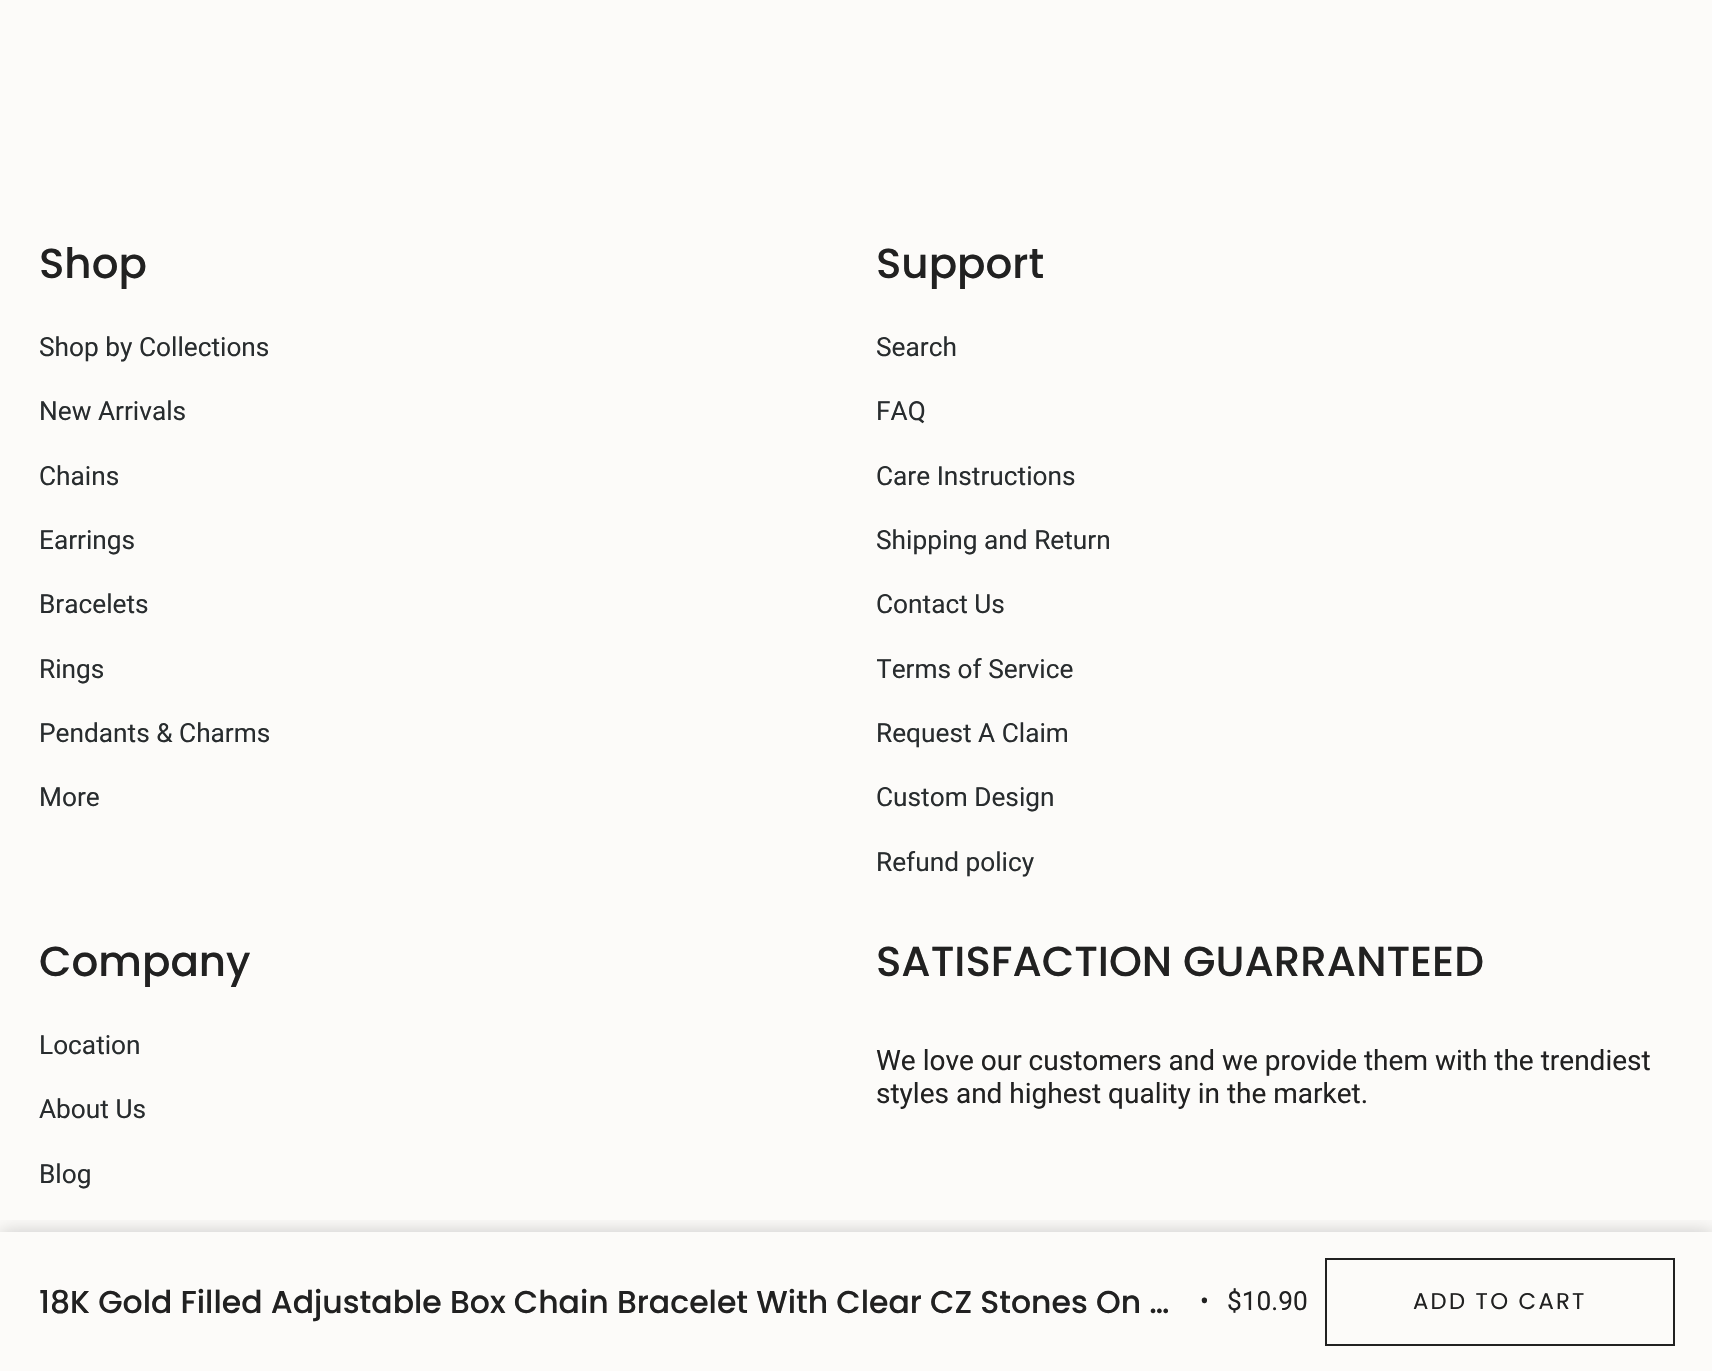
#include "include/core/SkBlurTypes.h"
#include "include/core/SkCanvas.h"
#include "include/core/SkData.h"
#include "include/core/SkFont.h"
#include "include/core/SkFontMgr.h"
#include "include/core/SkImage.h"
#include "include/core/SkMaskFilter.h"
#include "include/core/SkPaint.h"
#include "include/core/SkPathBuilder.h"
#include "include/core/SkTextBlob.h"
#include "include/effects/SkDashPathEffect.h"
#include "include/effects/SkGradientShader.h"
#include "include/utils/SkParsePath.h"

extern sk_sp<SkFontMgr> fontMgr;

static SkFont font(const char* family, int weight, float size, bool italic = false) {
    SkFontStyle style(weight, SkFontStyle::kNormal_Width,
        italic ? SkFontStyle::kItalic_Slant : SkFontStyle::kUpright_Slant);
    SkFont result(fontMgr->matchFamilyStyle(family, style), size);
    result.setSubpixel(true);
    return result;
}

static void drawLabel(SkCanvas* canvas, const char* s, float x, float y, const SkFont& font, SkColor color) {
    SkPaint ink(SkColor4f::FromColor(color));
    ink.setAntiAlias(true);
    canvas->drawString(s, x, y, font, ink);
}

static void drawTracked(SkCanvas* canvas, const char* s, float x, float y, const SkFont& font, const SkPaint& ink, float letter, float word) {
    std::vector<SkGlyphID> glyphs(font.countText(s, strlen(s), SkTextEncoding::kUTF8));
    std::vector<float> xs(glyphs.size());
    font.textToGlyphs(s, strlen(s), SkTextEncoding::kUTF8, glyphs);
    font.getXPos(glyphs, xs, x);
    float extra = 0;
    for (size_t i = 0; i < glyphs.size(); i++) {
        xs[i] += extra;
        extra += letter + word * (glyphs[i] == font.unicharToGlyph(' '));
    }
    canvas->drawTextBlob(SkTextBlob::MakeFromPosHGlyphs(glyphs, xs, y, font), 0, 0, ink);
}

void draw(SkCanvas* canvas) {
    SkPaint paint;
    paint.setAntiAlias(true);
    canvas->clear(0xFFFCFBF9);
    SkFont font1 = font("Poppins", 500, 42);
    drawLabel(canvas, "Shop", 39, 278, font1, 0xFF212121);
    SkFont font2 = font("Roboto", 400, 26.25f);
    drawLabel(canvas, "Shop by Collections", 39, 356, font2, 0xFF282C2E);
    drawLabel(canvas, "New Arrivals", 39, 420, font2, 0xFF282C2E);
    drawLabel(canvas, "Chains", 39, 485, font2, 0xFF282C2E);
    drawLabel(canvas, "Earrings", 39, 549, font2, 0xFF282C2E);
    drawLabel(canvas, "Bracelets", 39, 613, font2, 0xFF282C2E);
    drawLabel(canvas, "Rings", 39, 678, font2, 0xFF282C2E);
    drawLabel(canvas, "Pendants & Charms", 39, 742, font2, 0xFF282C2E);
    drawLabel(canvas, "More", 39, 806, font2, 0xFF282C2E);
    drawLabel(canvas, "Support", 876, 278, font1, 0xFF212121);
    drawLabel(canvas, "Search", 876, 356, font2, 0xFF282C2E);
    drawLabel(canvas, "FAQ", 876, 420, font2, 0xFF282C2E);
    drawLabel(canvas, "Care Instructions", 876, 485, font2, 0xFF282C2E);
    drawLabel(canvas, "Shipping and Return", 876, 549, font2, 0xFF282C2E);
    drawLabel(canvas, "Contact Us", 876, 613, font2, 0xFF282C2E);
    canvas->save();
    canvas->clipRect(SkRect::MakeXYWH(877, 331, 798, 546));
    drawLabel(canvas, "Terms of Service", 876, 678, font2, 0xFF282C2E);
    canvas->restore();
    drawLabel(canvas, "Request A Claim", 876, 742, font2, 0xFF282C2E);
    drawLabel(canvas, "Custom Design", 876, 806, font2, 0xFF282C2E);
    drawLabel(canvas, "Refund policy", 876, 871, font2, 0xFF282C2E);
    drawLabel(canvas, "Company", 39, 976, font1, 0xFF212121);
    drawLabel(canvas, "Location", 39, 1054, font2, 0xFF282C2E);
    drawLabel(canvas, "About Us", 39, 1118, font2, 0xFF282C2E);
    drawLabel(canvas, "Blog", 39, 1183, font2, 0xFF282C2E);
    drawLabel(canvas, "SATISFACTION GUARRANTEED", 876, 976, font1, 0xFF212121);
    SkFont font3 = font("Roboto", 400, 28);
    drawLabel(canvas, "We love our customers and we provide them with the trendiest", 876, 1070, font3, 0xFF212121);
    drawLabel(canvas, "styles and highest quality in the market.", 876, 1103, font3, 0xFF212121);
    canvas->save();
    canvas->clipRect(SkRect::MakeXYWH(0, 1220, 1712, 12));
    paint.setColor(0x33000000);
    paint.setMaskFilter(SkMaskFilter::MakeBlur(kNormal_SkBlurStyle, 9));
    canvas->drawRect(SkRect::MakeXYWH(0, 1232, 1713, 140), paint);
    paint.setMaskFilter(nullptr);
    canvas->restore();
    SkFont font4 = font("Poppins", 500, 31.5f);
    drawLabel(canvas, "18K Gold Filled Adjustable Box Chain Bracelet With Clear CZ Stones On …", 39, 1313, font4, 0xFF212121);
    drawLabel(canvas, "•", 1200, 1310, font2, 0xFF212121);
    drawLabel(canvas, "$10.90", 1227, 1310, font2, 0xFF212121);
    paint.setStroke(true);
    paint.setStrokeWidth(2);
    paint.setColor(0xFF212121);
    canvas->drawRect(SkRect::MakeXYWH(1326, 1259, 348, 86), paint);
    SkFont font5 = font("Poppins", 400, 22.75f);
    paint.setStroke(false);
    drawTracked(canvas, "ADD TO CART", 1413, 1309, font5, paint, 2.25f, 0);
}
